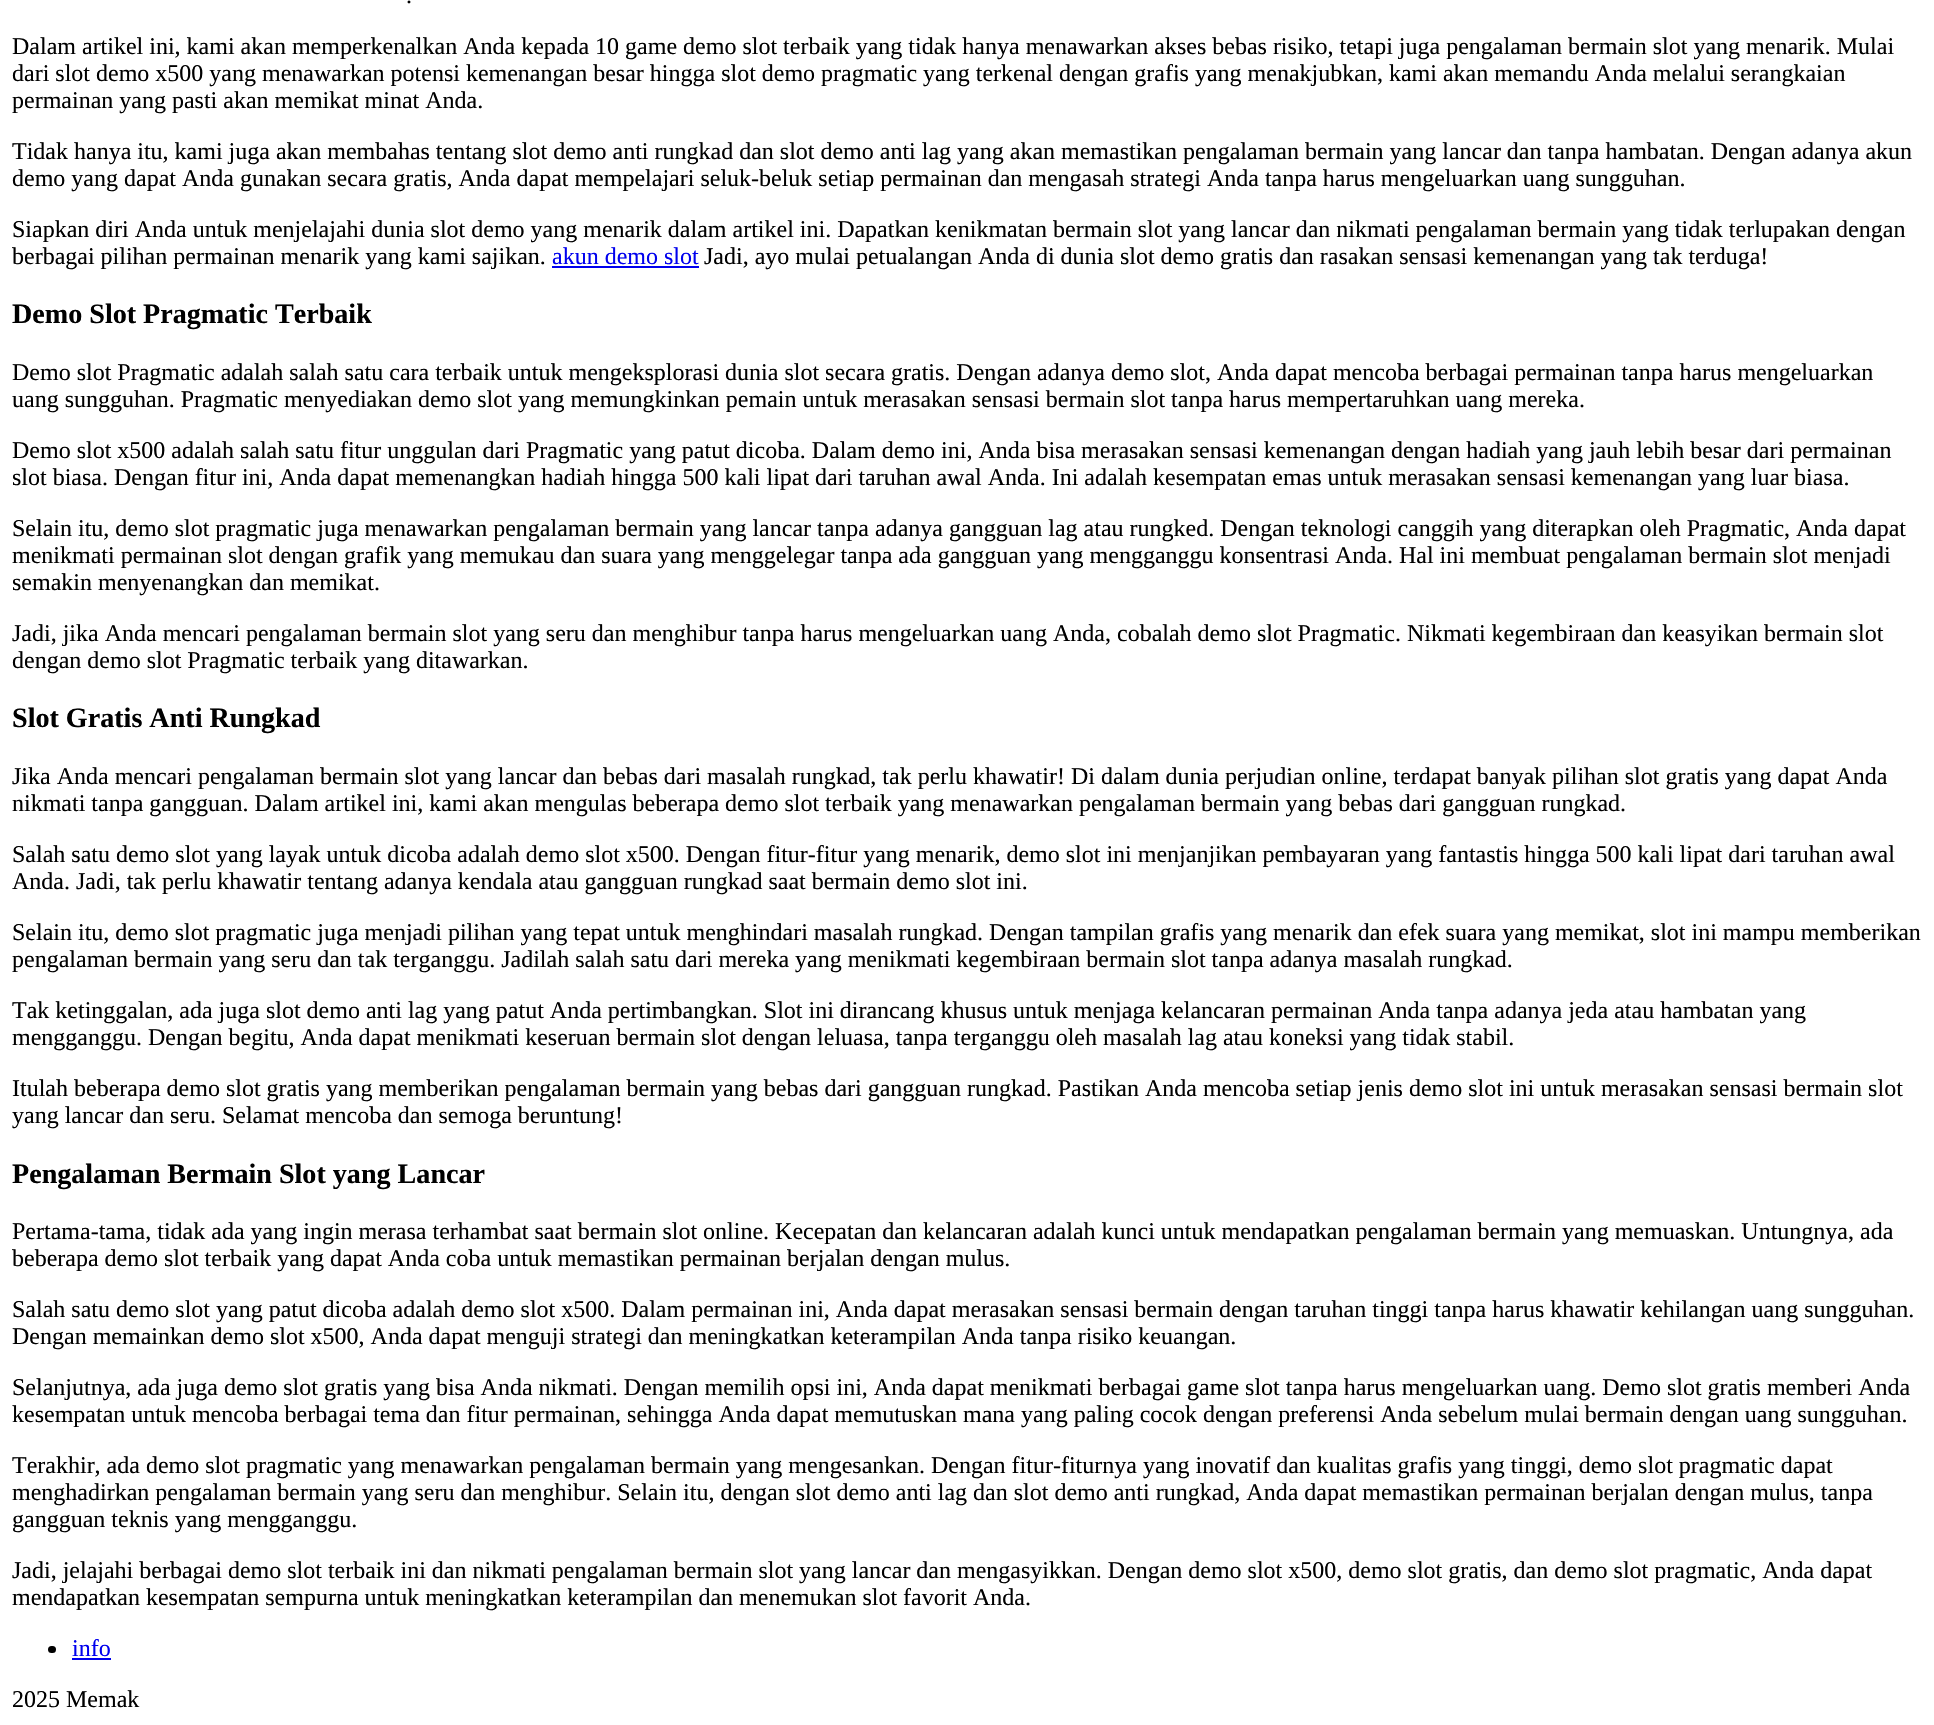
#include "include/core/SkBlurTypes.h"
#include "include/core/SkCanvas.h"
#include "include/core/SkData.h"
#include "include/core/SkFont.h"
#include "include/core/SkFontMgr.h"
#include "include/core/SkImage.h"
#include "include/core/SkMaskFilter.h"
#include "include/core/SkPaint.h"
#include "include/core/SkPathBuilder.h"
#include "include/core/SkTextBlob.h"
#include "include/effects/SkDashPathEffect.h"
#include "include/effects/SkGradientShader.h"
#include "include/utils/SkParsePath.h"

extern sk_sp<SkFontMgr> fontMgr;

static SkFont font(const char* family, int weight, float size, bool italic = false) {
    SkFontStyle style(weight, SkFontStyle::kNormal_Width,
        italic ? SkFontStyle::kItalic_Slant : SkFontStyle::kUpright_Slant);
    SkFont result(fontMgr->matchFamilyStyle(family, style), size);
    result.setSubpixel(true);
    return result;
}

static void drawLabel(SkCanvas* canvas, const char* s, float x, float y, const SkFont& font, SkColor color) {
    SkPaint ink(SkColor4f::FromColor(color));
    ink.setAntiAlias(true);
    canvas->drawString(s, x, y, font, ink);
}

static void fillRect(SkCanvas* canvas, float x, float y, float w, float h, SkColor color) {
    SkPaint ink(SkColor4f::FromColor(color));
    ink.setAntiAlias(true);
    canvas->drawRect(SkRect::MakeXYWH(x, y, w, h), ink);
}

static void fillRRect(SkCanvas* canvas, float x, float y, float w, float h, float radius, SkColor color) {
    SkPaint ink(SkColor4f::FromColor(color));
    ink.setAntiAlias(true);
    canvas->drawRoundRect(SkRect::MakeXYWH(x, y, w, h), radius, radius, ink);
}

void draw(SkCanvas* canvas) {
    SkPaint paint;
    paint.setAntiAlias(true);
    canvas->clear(0xFFFFFFFF);
    SkFont font1 = font("Liberation Serif", 400, 24);
    drawLabel(canvas, ".", 406, 3, font1, 0xFF000000);
    drawLabel(canvas, "Dalam artikel ini, kami akan memperkenalkan Anda kepada 10 game demo slot terbaik yang tidak hanya menawarkan akses bebas risiko, tetapi juga pengalaman bermain slot yang menarik. Mulai", 12, 54, font1, 0xFF000000);
    drawLabel(canvas, "dari slot demo x500 yang menawarkan potensi kemenangan besar hingga slot demo pragmatic yang terkenal dengan grafis yang menakjubkan, kami akan memandu Anda melalui serangkaian", 12, 81, font1, 0xFF000000);
    drawLabel(canvas, "permainan yang pasti akan memikat minat Anda.", 12, 108, font1, 0xFF000000);
    drawLabel(canvas, "Tidak hanya itu, kami juga akan membahas tentang slot demo anti rungkad dan slot demo anti lag yang akan memastikan pengalaman bermain yang lancar dan tanpa hambatan. Dengan adanya akun", 12, 159, font1, 0xFF000000);
    drawLabel(canvas, "demo yang dapat Anda gunakan secara gratis, Anda dapat mempelajari seluk-beluk setiap permainan dan mengasah strategi Anda tanpa harus mengeluarkan uang sungguhan.", 12, 186, font1, 0xFF000000);
    drawLabel(canvas, "Siapkan diri Anda untuk menjelajahi dunia slot demo yang menarik dalam artikel ini. Dapatkan kenikmatan bermain slot yang lancar dan nikmati pengalaman bermain yang tidak terlupakan dengan", 12, 237, font1, 0xFF000000);
    drawLabel(canvas, "berbagai pilihan permainan menarik yang kami sajikan.", 12, 264, font1, 0xFF000000);
    drawLabel(canvas, "akun demo slot", 552, 264, font1, 0xFF0000EE);
    fillRect(canvas, 552, 266, 147, 2, 0xFF0000EE);
    drawLabel(canvas, "Jadi, ayo mulai petualangan Anda di dunia slot demo gratis dan rasakan sensasi kemenangan yang tak terduga!", 704, 264, font1, 0xFF000000);
    SkFont font2 = font("Liberation Serif", 700, 28.1f);
    drawLabel(canvas, "Demo Slot Pragmatic Terbaik", 12, 323, font2, 0xFF000000);
    drawLabel(canvas, "Demo slot Pragmatic adalah salah satu cara terbaik untuk mengeksplorasi dunia slot secara gratis. Dengan adanya demo slot, Anda dapat mencoba berbagai permainan tanpa harus mengeluarkan", 12, 380, font1, 0xFF000000);
    drawLabel(canvas, "uang sungguhan. Pragmatic menyediakan demo slot yang memungkinkan pemain untuk merasakan sensasi bermain slot tanpa harus mempertaruhkan uang mereka.", 12, 407, font1, 0xFF000000);
    drawLabel(canvas, "Demo slot x500 adalah salah satu fitur unggulan dari Pragmatic yang patut dicoba. Dalam demo ini, Anda bisa merasakan sensasi kemenangan dengan hadiah yang jauh lebih besar dari permainan", 12, 458, font1, 0xFF000000);
    drawLabel(canvas, "slot biasa. Dengan fitur ini, Anda dapat memenangkan hadiah hingga 500 kali lipat dari taruhan awal Anda. Ini adalah kesempatan emas untuk merasakan sensasi kemenangan yang luar biasa.", 12, 485, font1, 0xFF000000);
    drawLabel(canvas, "Selain itu, demo slot pragmatic juga menawarkan pengalaman bermain yang lancar tanpa adanya gangguan lag atau rungked. Dengan teknologi canggih yang diterapkan oleh Pragmatic, Anda dapat", 12, 536, font1, 0xFF000000);
    drawLabel(canvas, "menikmati permainan slot dengan grafik yang memukau dan suara yang menggelegar tanpa ada gangguan yang mengganggu konsentrasi Anda. Hal ini membuat pengalaman bermain slot menjadi", 12, 563, font1, 0xFF000000);
    drawLabel(canvas, "semakin menyenangkan dan memikat.", 12, 590, font1, 0xFF000000);
    drawLabel(canvas, "Jadi, jika Anda mencari pengalaman bermain slot yang seru dan menghibur tanpa harus mengeluarkan uang Anda, cobalah demo slot Pragmatic. Nikmati kegembiraan dan keasyikan bermain slot", 12, 641, font1, 0xFF000000);
    drawLabel(canvas, "dengan demo slot Pragmatic terbaik yang ditawarkan.", 12, 668, font1, 0xFF000000);
    drawLabel(canvas, "Slot Gratis Anti Rungkad", 12, 727, font2, 0xFF000000);
    drawLabel(canvas, "Jika Anda mencari pengalaman bermain slot yang lancar dan bebas dari masalah rungkad, tak perlu khawatir! Di dalam dunia perjudian online, terdapat banyak pilihan slot gratis yang dapat Anda", 12, 784, font1, 0xFF000000);
    drawLabel(canvas, "nikmati tanpa gangguan. Dalam artikel ini, kami akan mengulas beberapa demo slot terbaik yang menawarkan pengalaman bermain yang bebas dari gangguan rungkad.", 12, 811, font1, 0xFF000000);
    drawLabel(canvas, "Salah satu demo slot yang layak untuk dicoba adalah demo slot x500. Dengan fitur-fitur yang menarik, demo slot ini menjanjikan pembayaran yang fantastis hingga 500 kali lipat dari taruhan awal", 12, 862, font1, 0xFF000000);
    drawLabel(canvas, "Anda. Jadi, tak perlu khawatir tentang adanya kendala atau gangguan rungkad saat bermain demo slot ini.", 12, 889, font1, 0xFF000000);
    drawLabel(canvas, "Selain itu, demo slot pragmatic juga menjadi pilihan yang tepat untuk menghindari masalah rungkad. Dengan tampilan grafis yang menarik dan efek suara yang memikat, slot ini mampu memberikan", 12, 940, font1, 0xFF000000);
    drawLabel(canvas, "pengalaman bermain yang seru dan tak terganggu. Jadilah salah satu dari mereka yang menikmati kegembiraan bermain slot tanpa adanya masalah rungkad.", 12, 967, font1, 0xFF000000);
    drawLabel(canvas, "Tak ketinggalan, ada juga slot demo anti lag yang patut Anda pertimbangkan. Slot ini dirancang khusus untuk menjaga kelancaran permainan Anda tanpa adanya jeda atau hambatan yang", 12, 1018, font1, 0xFF000000);
    drawLabel(canvas, "mengganggu. Dengan begitu, Anda dapat menikmati keseruan bermain slot dengan leluasa, tanpa terganggu oleh masalah lag atau koneksi yang tidak stabil.", 12, 1045, font1, 0xFF000000);
    drawLabel(canvas, "Itulah beberapa demo slot gratis yang memberikan pengalaman bermain yang bebas dari gangguan rungkad. Pastikan Anda mencoba setiap jenis demo slot ini untuk merasakan sensasi bermain slot", 12, 1096, font1, 0xFF000000);
    drawLabel(canvas, "yang lancar dan seru. Selamat mencoba dan semoga beruntung!", 12, 1123, font1, 0xFF000000);
    drawLabel(canvas, "Pengalaman Bermain Slot yang Lancar", 12, 1183, font2, 0xFF000000);
    drawLabel(canvas, "Pertama-tama, tidak ada yang ingin merasa terhambat saat bermain slot online. Kecepatan dan kelancaran adalah kunci untuk mendapatkan pengalaman bermain yang memuaskan. Untungnya, ada", 12, 1239, font1, 0xFF000000);
    drawLabel(canvas, "beberapa demo slot terbaik yang dapat Anda coba untuk memastikan permainan berjalan dengan mulus.", 12, 1266, font1, 0xFF000000);
    drawLabel(canvas, "Salah satu demo slot yang patut dicoba adalah demo slot x500. Dalam permainan ini, Anda dapat merasakan sensasi bermain dengan taruhan tinggi tanpa harus khawatir kehilangan uang sungguhan.", 12, 1317, font1, 0xFF000000);
    drawLabel(canvas, "Dengan memainkan demo slot x500, Anda dapat menguji strategi dan meningkatkan keterampilan Anda tanpa risiko keuangan.", 12, 1344, font1, 0xFF000000);
    drawLabel(canvas, "Selanjutnya, ada juga demo slot gratis yang bisa Anda nikmati. Dengan memilih opsi ini, Anda dapat menikmati berbagai game slot tanpa harus mengeluarkan uang. Demo slot gratis memberi Anda", 12, 1395, font1, 0xFF000000);
    drawLabel(canvas, "kesempatan untuk mencoba berbagai tema dan fitur permainan, sehingga Anda dapat memutuskan mana yang paling cocok dengan preferensi Anda sebelum mulai bermain dengan uang sungguhan.", 12, 1422, font1, 0xFF000000);
    drawLabel(canvas, "Terakhir, ada demo slot pragmatic yang menawarkan pengalaman bermain yang mengesankan. Dengan fitur-fiturnya yang inovatif dan kualitas grafis yang tinggi, demo slot pragmatic dapat", 12, 1473, font1, 0xFF000000);
    drawLabel(canvas, "menghadirkan pengalaman bermain yang seru dan menghibur. Selain itu, dengan slot demo anti lag dan slot demo anti rungkad, Anda dapat memastikan permainan berjalan dengan mulus, tanpa", 12, 1500, font1, 0xFF000000);
    drawLabel(canvas, "gangguan teknis yang mengganggu.", 12, 1527, font1, 0xFF000000);
    drawLabel(canvas, "Jadi, jelajahi berbagai demo slot terbaik ini dan nikmati pengalaman bermain slot yang lancar dan mengasyikkan. Dengan demo slot x500, demo slot gratis, dan demo slot pragmatic, Anda dapat", 12, 1578, font1, 0xFF000000);
    drawLabel(canvas, "mendapatkan kesempatan sempurna untuk meningkatkan keterampilan dan menemukan slot favorit Anda.", 12, 1605, font1, 0xFF000000);
    fillRRect(canvas, 48, 1646, 8, 7, 3.5f, 0xFF000000);
    drawLabel(canvas, "info", 72, 1656, font1, 0xFF0000EE);
    fillRect(canvas, 72, 1658, 39, 2, 0xFF0000EE);
    drawLabel(canvas, "2025 Memak", 12, 1707, font1, 0xFF000000);
}
